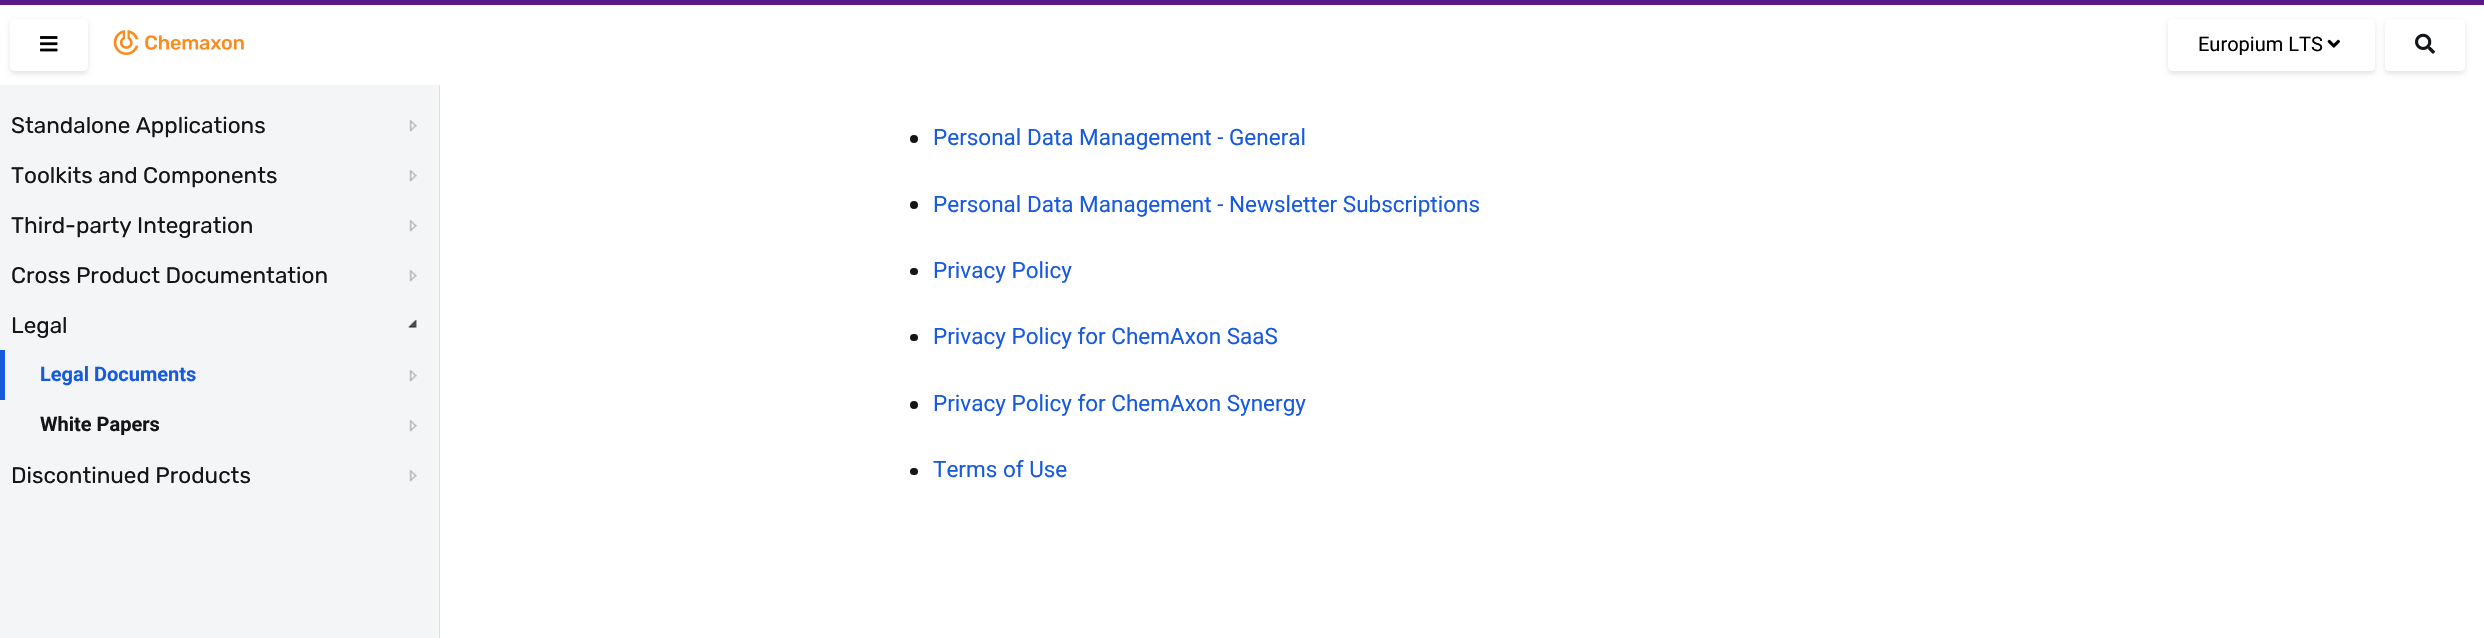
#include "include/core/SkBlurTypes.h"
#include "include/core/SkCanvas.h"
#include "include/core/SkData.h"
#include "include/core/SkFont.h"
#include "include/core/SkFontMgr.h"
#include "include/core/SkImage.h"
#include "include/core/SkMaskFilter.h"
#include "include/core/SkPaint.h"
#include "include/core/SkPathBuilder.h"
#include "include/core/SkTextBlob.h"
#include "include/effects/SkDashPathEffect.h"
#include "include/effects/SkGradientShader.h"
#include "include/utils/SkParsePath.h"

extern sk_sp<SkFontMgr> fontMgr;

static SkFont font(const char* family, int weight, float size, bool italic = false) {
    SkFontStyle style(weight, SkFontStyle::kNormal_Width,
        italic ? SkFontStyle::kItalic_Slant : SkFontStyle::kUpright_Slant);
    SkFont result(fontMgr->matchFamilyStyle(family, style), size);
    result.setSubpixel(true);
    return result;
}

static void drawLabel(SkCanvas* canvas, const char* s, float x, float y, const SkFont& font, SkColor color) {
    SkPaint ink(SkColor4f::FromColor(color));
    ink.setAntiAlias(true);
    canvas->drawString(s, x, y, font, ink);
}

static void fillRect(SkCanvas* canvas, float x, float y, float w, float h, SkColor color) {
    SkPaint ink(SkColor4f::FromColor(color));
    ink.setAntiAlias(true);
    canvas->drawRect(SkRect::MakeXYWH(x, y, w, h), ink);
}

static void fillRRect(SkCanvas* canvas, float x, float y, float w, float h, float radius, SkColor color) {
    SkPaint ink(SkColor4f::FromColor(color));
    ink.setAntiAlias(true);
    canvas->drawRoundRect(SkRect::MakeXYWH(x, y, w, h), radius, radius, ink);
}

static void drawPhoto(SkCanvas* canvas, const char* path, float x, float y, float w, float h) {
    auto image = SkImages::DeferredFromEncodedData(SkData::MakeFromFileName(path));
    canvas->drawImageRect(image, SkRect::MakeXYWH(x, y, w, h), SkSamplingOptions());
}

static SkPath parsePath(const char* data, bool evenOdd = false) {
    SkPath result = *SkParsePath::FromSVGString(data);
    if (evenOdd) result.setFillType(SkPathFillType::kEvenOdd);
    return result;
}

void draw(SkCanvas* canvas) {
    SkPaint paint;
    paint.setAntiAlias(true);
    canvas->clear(0xFFFFFFFF);
    fillRect(canvas, 0, 0, 2484, 5, 0xFF5A1788);
    fillRect(canvas, 439, 80, 1, 558, 0xFFDAE1E7);
    fillRect(canvas, 439, 80, 1, 5, 0xFFFFFFFF);
    canvas->save();
    canvas->clipPath(parsePath("M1 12H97V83H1ZM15 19H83C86 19 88 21 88 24V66C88 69 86 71 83 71H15C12 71 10 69 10 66V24C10 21 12 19 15 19Z", true), true);
    paint.setColor(0x1A000000);
    paint.setMaskFilter(SkMaskFilter::MakeBlur(kNormal_SkBlurStyle, 2.5f));
    canvas->drawRoundRect(SkRect::MakeXYWH(10, 21, 78, 53), 5, 5, paint);
    paint.setMaskFilter(nullptr);
    canvas->restore();
    drawPhoto(canvas, "assets/img1.png", 40, 36, 18, 16);
    drawPhoto(canvas, "assets/img2.png", 113, 30, 131, 25);
    canvas->save();
    canvas->clipPath(parsePath("M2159 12H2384V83H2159ZM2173 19H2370C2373 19 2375 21 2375 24V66C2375 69 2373 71 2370 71H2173C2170 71 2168 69 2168 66V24C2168 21 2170 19 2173 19Z", true), true);
    paint.setMaskFilter(SkMaskFilter::MakeBlur(kNormal_SkBlurStyle, 2.5f));
    canvas->drawRoundRect(SkRect::MakeXYWH(2168, 21, 207, 53), 5, 5, paint);
    paint.setMaskFilter(nullptr);
    canvas->restore();
    SkFont font1 = font("Roboto", 400, 20);
    drawLabel(canvas, "Europium LTS", 2198, 51, font1, 0xFF000000);
    drawPhoto(canvas, "assets/img3.png", 2327, 39, 13, 9);
    canvas->save();
    canvas->clipPath(parsePath("M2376 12H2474V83H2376ZM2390 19H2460C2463 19 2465 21 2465 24V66C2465 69 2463 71 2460 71H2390C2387 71 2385 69 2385 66V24C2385 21 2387 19 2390 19Z", true), true);
    paint.setMaskFilter(SkMaskFilter::MakeBlur(kNormal_SkBlurStyle, 2.5f));
    canvas->drawRoundRect(SkRect::MakeXYWH(2385, 21, 80, 53), 5, 5, paint);
    paint.setMaskFilter(nullptr);
    canvas->restore();
    drawPhoto(canvas, "assets/img4.png", 2415, 33, 20, 21);
    fillRect(canvas, 0, 85, 439, 553, 0xFFF4F5F7);
    SkFont font2 = font("Rubik", 400, 22.5f);
    drawLabel(canvas, "Standalone Applications", 11, 133, font2, 0xFF131517);
    drawPhoto(canvas, "assets/img5.png", 409, 120, 8, 12);
    drawLabel(canvas, "Toolkits and Components", 11, 183, font2, 0xFF131517);
    drawPhoto(canvas, "assets/img5.png", 409, 170, 8, 12);
    drawLabel(canvas, "Third-party Integration", 11, 233, font2, 0xFF131517);
    drawPhoto(canvas, "assets/img5.png", 409, 220, 8, 12);
    drawLabel(canvas, "Cross Product Documentation", 11, 283, font2, 0xFF131517);
    drawPhoto(canvas, "assets/img5.png", 409, 270, 8, 12);
    drawLabel(canvas, "Legal", 11, 333, font2, 0xFF131517);
    drawPhoto(canvas, "assets/img6.png", 408, 319, 9, 9);
    fillRect(canvas, 0, 350, 5, 50, 0xFF185ADD);
    SkFont font3 = font("Roboto", 700, 20);
    drawLabel(canvas, "Legal Documents", 40, 381, font3, 0xFF185ADD);
    drawPhoto(canvas, "assets/img5.png", 409, 370, 8, 12);
    drawLabel(canvas, "White Papers", 40, 431, font3, 0xFF131517);
    drawPhoto(canvas, "assets/img5.png", 409, 420, 8, 12);
    drawLabel(canvas, "Discontinued Products", 11, 483, font2, 0xFF131517);
    drawPhoto(canvas, "assets/img5.png", 409, 470, 8, 12);
    paint.setColor(0xFF131517);
    canvas->drawCircle(914, 139, 4, paint);
    SkFont font4 = font("Roboto", 400, 22.5f);
    drawLabel(canvas, "Personal Data Management - General", 933, 145, font4, 0xFF185ADD);
    canvas->drawCircle(914, 205, 4, paint);
    drawLabel(canvas, "Personal Data Management - Newsletter Subscriptions", 933, 212, font4, 0xFF185ADD);
    fillRRect(canvas, 910, 268, 8, 7, 3.5f, 0xFF131517);
    drawLabel(canvas, "Privacy Policy", 933, 278, font4, 0xFF185ADD);
    fillRRect(canvas, 910, 334, 8, 7, 3.5f, 0xFF131517);
    drawLabel(canvas, "Privacy Policy for ChemAxon SaaS", 933, 344, font4, 0xFF185ADD);
    canvas->drawCircle(914, 405, 4, paint);
    drawLabel(canvas, "Privacy Policy for ChemAxon Synergy", 933, 411, font4, 0xFF185ADD);
    fillRRect(canvas, 910, 468, 8, 7, 3.5f, 0xFF131517);
    drawLabel(canvas, "Terms of Use", 933, 477, font4, 0xFF185ADD);
}
